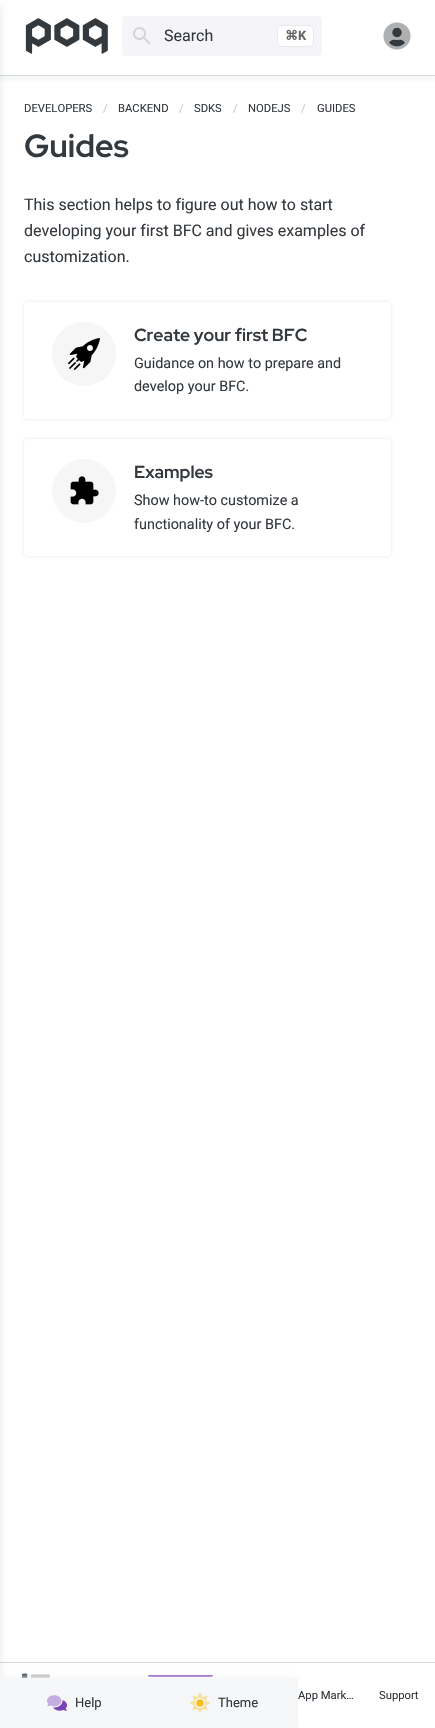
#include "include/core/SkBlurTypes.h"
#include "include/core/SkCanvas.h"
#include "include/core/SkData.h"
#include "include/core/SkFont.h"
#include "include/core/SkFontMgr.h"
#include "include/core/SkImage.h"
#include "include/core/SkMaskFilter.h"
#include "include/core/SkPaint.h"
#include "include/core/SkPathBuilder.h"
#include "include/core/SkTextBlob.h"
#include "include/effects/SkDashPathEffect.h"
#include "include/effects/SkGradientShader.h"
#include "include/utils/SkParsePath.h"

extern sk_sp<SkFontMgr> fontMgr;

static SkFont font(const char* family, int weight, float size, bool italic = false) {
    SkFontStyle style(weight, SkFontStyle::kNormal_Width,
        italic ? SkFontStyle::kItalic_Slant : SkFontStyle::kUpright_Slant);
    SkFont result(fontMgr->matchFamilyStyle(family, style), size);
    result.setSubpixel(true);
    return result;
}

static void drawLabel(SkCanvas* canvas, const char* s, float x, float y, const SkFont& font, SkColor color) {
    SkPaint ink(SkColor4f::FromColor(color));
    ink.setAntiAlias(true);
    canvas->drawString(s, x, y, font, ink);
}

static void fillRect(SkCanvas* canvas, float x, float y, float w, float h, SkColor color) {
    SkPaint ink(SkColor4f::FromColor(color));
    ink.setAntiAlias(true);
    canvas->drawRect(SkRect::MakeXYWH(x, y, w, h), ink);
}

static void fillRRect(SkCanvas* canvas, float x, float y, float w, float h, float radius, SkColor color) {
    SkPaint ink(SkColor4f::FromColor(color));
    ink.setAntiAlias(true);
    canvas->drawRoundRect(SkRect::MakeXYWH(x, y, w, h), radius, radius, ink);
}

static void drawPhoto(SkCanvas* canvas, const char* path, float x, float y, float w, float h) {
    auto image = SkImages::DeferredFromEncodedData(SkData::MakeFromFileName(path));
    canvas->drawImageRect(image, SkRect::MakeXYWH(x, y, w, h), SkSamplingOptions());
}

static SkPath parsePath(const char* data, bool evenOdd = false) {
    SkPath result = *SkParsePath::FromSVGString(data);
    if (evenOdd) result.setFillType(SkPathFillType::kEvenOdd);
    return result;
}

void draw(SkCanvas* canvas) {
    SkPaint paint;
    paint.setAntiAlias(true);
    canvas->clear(0xFFFFFFFF);
    canvas->save();
    canvas->clipRect(SkRect::MakeXYWH(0, 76, 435, 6));
    paint.setColor(0x1A74818D);
    paint.setMaskFilter(SkMaskFilter::MakeBlur(kNormal_SkBlurStyle, 4));
    canvas->drawRect(SkRect::MakeXYWH(0, -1, 435, 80), paint);
    paint.setMaskFilter(nullptr);
    canvas->restore();
    fillRect(canvas, 0, 75, 435, 1, 0xFFD4DADF);
    drawPhoto(canvas, "assets/img1.png", 25, 18, 83, 36);
    fillRRect(canvas, 122, 16, 200, 40, 4, 0xFFF5F5F9);
    drawPhoto(canvas, "assets/img2.png", 133, 27, 18, 18);
    SkFont font1 = font("Roboto", 400, 16);
    drawLabel(canvas, "Search", 164, 41, font1, 0xFF34393E);
    paint.setColor(0xFFFFFFFF);
    canvas->drawRoundRect(SkRect::MakeXYWH(277.5f, 25.5f, 36, 21), 4.5f, 4.5f, paint);
    paint.setStroke(true);
    paint.setStrokeWidth(1);
    paint.setColor(0xFFE5E8EC);
    canvas->drawRoundRect(SkRect::MakeXYWH(277.5f, 25.5f, 36, 21), 4.5f, 4.5f, paint);
    SkFont font2 = font("DejaVu Sans", 700, 13);
    drawLabel(canvas, "⌘", 285, 40, font2, 0xFF666666);
    SkFont font3 = font("Roboto", 700, 13);
    drawLabel(canvas, "K", 298, 40, font3, 0xFF666666);
    drawPhoto(canvas, "assets/img3.png", 383, 22, 28, 28);
    fillRect(canvas, 0, 1662, 435, 1, 0xFFD4DADF);
    paint.setStroke(false);
    paint.setColor(0x3374818D);
    paint.setMaskFilter(SkMaskFilter::MakeBlur(kNormal_SkBlurStyle, 4));
    canvas->drawRect(SkRect::MakeXYWH(-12, 5, 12, 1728), paint);
    paint.setMaskFilter(nullptr);
    SkFont font4 = font("Roboto", 400, 11.25f);
    drawLabel(canvas, "DEVELOPERS", 24, 112, font4, 0xFF34393E);
    drawLabel(canvas, "/", 103, 112, font4, 0xFFCCCCCC);
    drawLabel(canvas, "BACKEND", 118, 112, font4, 0xFF34393E);
    drawLabel(canvas, "/", 179, 112, font4, 0xFFCCCCCC);
    drawLabel(canvas, "SDKS", 194, 112, font4, 0xFF34393E);
    drawLabel(canvas, "/", 233, 112, font4, 0xFFCCCCCC);
    drawLabel(canvas, "NODEJS", 248, 112, font4, 0xFF34393E);
    drawLabel(canvas, "/", 301, 112, font4, 0xFFCCCCCC);
    drawLabel(canvas, "GUIDES", 317, 112, font4, 0xFF34393E);
    SkFont font5 = font("Red Hat Display", 700, 32);
    drawLabel(canvas, "Guides", 24, 157, font5, 0xFF34393E);
    drawLabel(canvas, "This section helps to figure out how to start", 24, 210, font1, 0xFF34393E);
    drawLabel(canvas, "developing your first BFC and gives examples of", 24, 236, font1, 0xFF34393E);
    drawLabel(canvas, "customization.", 24, 262, font1, 0xFF34393E);
    paint.setColor(0x1A000000);
    paint.setMaskFilter(SkMaskFilter::MakeBlur(kNormal_SkBlurStyle, 1.5f));
    canvas->drawRoundRect(SkRect::MakeXYWH(24, 302, 367, 117), 4, 4, paint);
    paint.setMaskFilter(nullptr);
    fillRRect(canvas, 24, 302, 367, 117, 4, 0xFFFFFFFF);
    paint.setColor(0xFFF6F6F6);
    canvas->drawCircle(84, 354, 32, paint);
    drawPhoto(canvas, "assets/img4.png", 68, 338, 32, 32);
    SkFont font6 = font("Red Hat Display", 700, 17.5f);
    drawLabel(canvas, "Create your first BFC", 134, 341, font6, 0xFF34393E);
    SkFont font7 = font("Roboto", 400, 14.4f);
    drawLabel(canvas, "Guidance on how to prepare and", 134, 368, font7, 0xFF34393E);
    drawLabel(canvas, "develop your BFC.", 134, 391, font7, 0xFF34393E);
    paint.setColor(0x1A000000);
    paint.setMaskFilter(SkMaskFilter::MakeBlur(kNormal_SkBlurStyle, 1.5f));
    canvas->drawRoundRect(SkRect::MakeXYWH(24, 439, 367, 117), 4, 4, paint);
    paint.setMaskFilter(nullptr);
    fillRRect(canvas, 24, 439, 367, 117, 4, 0xFFFFFFFF);
    paint.setColor(0xFFF6F6F6);
    canvas->drawCircle(84, 491, 32, paint);
    drawPhoto(canvas, "assets/img5.png", 70, 476, 29, 29);
    drawLabel(canvas, "Examples", 134, 478, font6, 0xFF34393E);
    drawLabel(canvas, "Show how-to customize a", 134, 505, font7, 0xFF34393E);
    drawLabel(canvas, "functionality of your BFC.", 134, 529, font7, 0xFF34393E);
    drawPhoto(canvas, "assets/img8.png", 22, 1673, 28, 5);
    paint.setColor(0xFF7D42B8);
    canvas->drawPath(parsePath("M148 1675H213C213 1676 212 1677 211 1677H150C149 1677 148 1676 148 1675Z"), paint);
    paint.setColor(0xFFF5F7F9);
    paint.setMaskFilter(SkMaskFilter::MakeBlur(kNormal_SkBlurStyle, 3));
    canvas->drawRect(SkRect::MakeXYWH(-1, 1677, 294, 46), paint);
    paint.setMaskFilter(nullptr);
    fillRect(canvas, 0, 1678, 298, 50, 0xFFF5F7F9);
    drawPhoto(canvas, "assets/img6.png", 47, 1695, 20, 16);
    SkFont font8 = font("Roboto", 400, 13);
    drawLabel(canvas, "Help", 75, 1707, font8, 0xFF34393E);
    drawPhoto(canvas, "assets/img7.png", 190, 1693, 20, 20);
    drawLabel(canvas, "Theme", 218, 1707, font8, 0xFF34393E);
    drawLabel(canvas, "App Mark…", 298, 1699, font4, 0xFF34393E);
    drawLabel(canvas, "Support", 379, 1699, font4, 0xFF34393E);
}
